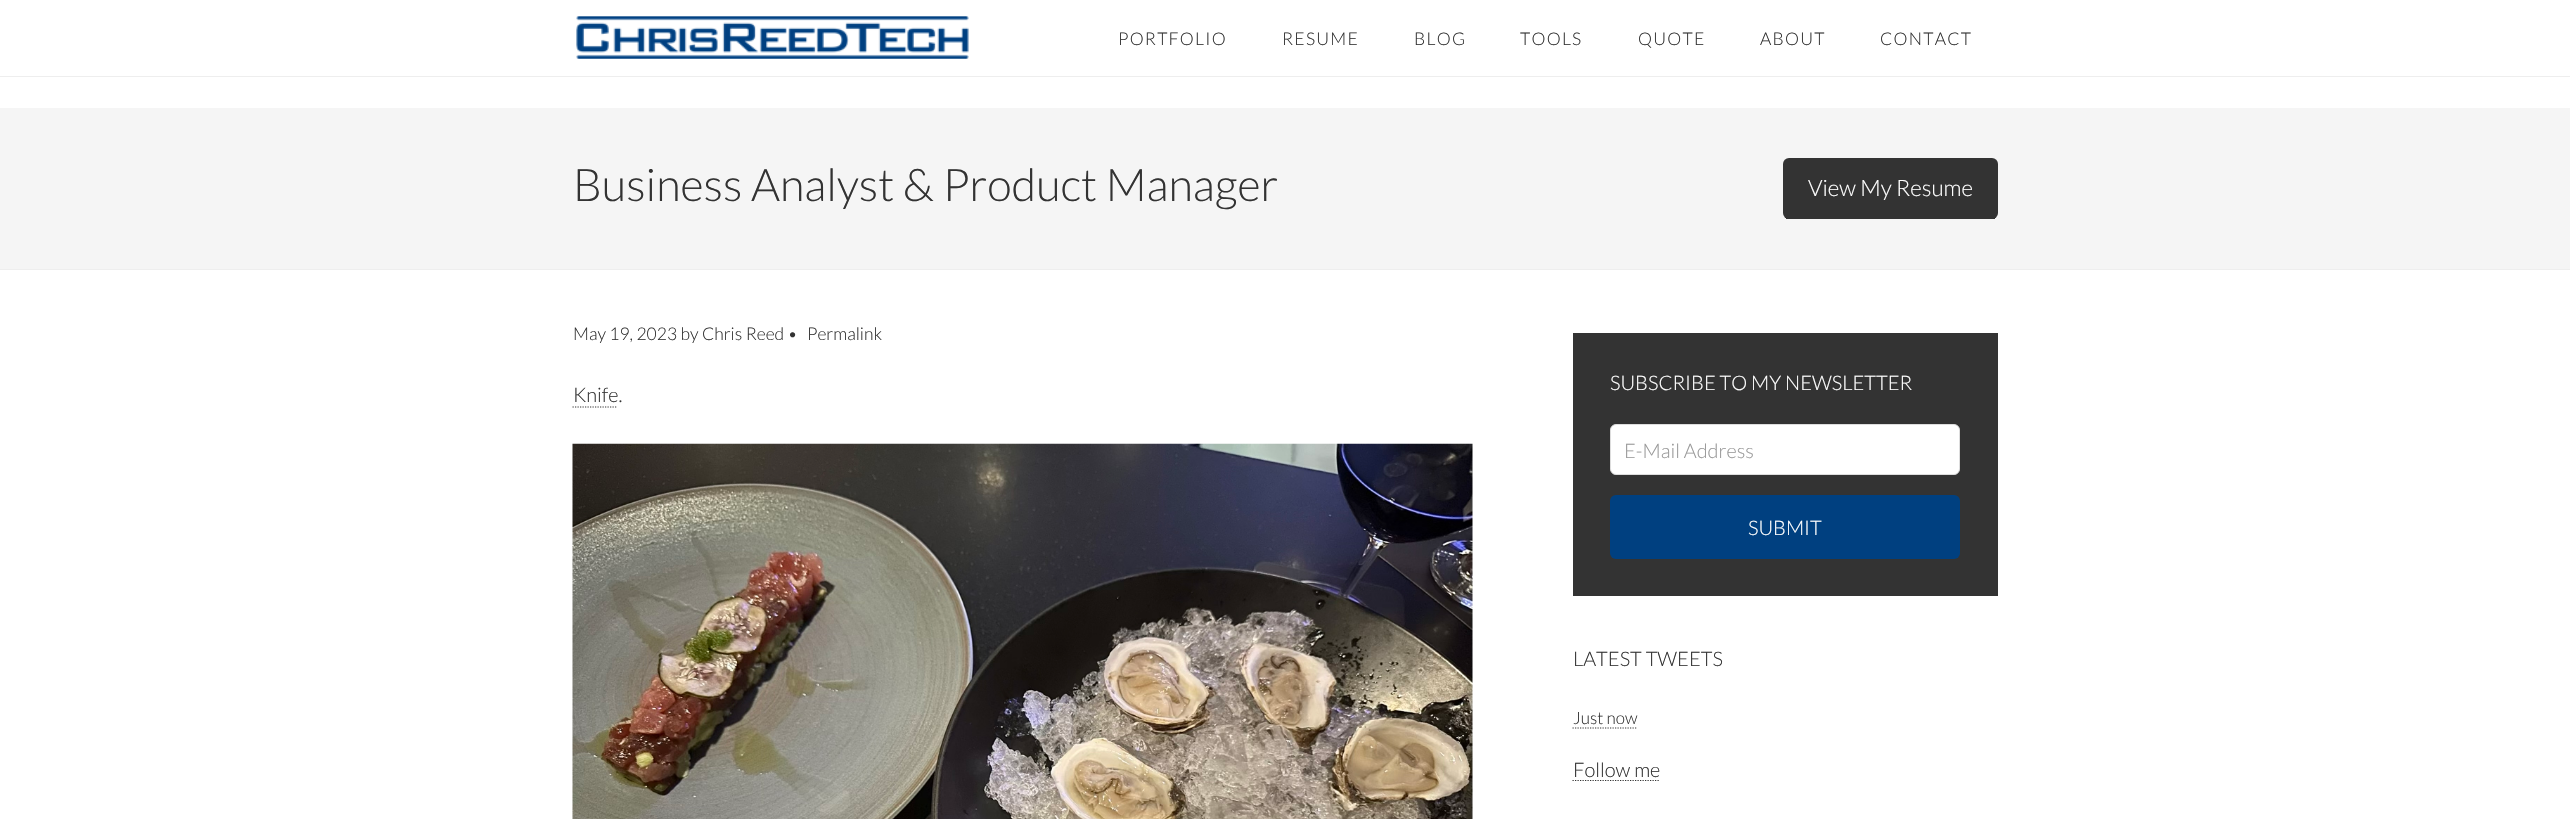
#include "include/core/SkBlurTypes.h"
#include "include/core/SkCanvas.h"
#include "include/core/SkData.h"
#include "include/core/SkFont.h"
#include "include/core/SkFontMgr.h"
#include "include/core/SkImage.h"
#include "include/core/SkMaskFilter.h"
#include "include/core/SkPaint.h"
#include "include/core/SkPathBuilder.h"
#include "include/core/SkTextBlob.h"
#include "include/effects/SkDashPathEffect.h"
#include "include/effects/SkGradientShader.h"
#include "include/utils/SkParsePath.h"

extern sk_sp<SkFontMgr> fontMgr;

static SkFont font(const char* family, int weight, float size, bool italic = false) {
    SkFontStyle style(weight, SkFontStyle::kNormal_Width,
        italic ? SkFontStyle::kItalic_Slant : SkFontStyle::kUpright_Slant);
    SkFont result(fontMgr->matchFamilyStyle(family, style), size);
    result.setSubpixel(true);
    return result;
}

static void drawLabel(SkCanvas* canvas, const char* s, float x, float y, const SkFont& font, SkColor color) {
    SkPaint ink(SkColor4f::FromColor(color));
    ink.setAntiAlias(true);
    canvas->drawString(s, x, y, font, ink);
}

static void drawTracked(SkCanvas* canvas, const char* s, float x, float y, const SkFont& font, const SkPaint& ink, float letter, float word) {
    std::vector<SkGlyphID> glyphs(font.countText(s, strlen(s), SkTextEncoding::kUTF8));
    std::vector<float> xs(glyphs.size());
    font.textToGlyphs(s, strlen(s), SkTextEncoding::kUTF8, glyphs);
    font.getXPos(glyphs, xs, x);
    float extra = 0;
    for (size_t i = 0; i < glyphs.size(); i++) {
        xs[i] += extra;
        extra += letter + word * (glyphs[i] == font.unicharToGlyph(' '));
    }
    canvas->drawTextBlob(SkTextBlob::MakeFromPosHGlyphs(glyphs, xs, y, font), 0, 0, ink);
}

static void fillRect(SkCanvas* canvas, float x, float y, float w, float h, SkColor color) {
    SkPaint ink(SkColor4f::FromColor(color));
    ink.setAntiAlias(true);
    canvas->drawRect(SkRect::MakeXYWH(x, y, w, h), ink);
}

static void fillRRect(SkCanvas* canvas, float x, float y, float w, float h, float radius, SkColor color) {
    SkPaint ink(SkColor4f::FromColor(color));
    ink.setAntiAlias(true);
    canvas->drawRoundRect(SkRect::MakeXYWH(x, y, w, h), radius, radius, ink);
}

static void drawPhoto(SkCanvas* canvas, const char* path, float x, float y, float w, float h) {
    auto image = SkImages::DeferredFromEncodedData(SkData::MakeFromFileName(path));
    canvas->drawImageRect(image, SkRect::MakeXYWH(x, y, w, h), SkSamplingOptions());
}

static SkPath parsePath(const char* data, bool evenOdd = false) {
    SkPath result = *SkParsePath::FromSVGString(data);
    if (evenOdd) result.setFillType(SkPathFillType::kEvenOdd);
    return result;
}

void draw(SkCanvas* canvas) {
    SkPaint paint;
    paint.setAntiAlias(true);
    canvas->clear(0xFFFFFFFF);
    fillRect(canvas, 0, 76, 2570, 1, 0xFFEEEEEE);
    drawPhoto(canvas, "assets/img1.png", 576, 16, 393, 43);
    SkFont font1 = font("Lato", 300, 17.5f);
    paint.setColor(0xFF333333);
    drawTracked(canvas, "PORTFOLIO", 1118, 45, font1, paint, 1.25f, 0);
    drawTracked(canvas, "RESUME", 1282, 45, font1, paint, 1.25f, 0);
    drawTracked(canvas, "BLOG", 1414, 45, font1, paint, 1.25f, 0);
    drawTracked(canvas, "TOOLS", 1520, 45, font1, paint, 1.25f, 0);
    drawTracked(canvas, "QUOTE", 1638, 45, font1, paint, 1.25f, 0);
    drawTracked(canvas, "ABOUT", 1760, 45, font1, paint, 1.25f, 0);
    drawTracked(canvas, "CONTACT", 1880, 45, font1, paint, 1.25f, 0);
    fillRect(canvas, 0, 108, 2570, 161, 0xFFF5F5F5);
    fillRect(canvas, 0, 269, 2570, 1, 0xFFEEEEEE);
    SkFont font2 = font("Lato", 300, 45);
    drawLabel(canvas, "Business Analyst & Product Manager", 573, 201, font2, 0xFF333333);
    fillRRect(canvas, 1783, 158, 215, 61, 6, 0xFF333333);
    fillRect(canvas, 1786, 218, 209, 1, 0xFF333333);
    SkFont font3 = font("Lato", 300, 22.5f);
    drawLabel(canvas, "View My Resume", 1808, 196, font3, 0xFFFFFFFF);
    drawLabel(canvas, "May 19, 2023 by Chris Reed •", 573, 340, font1, 0xFF333333);
    drawLabel(canvas, "Permalink", 807, 340, font1, 0xFF333333);
    SkFont font4 = font("Lato", 300, 20);
    drawLabel(canvas, "Knife.", 573, 402, font4, 0xFF333333);
    paint.setStroke(true);
    paint.setStrokeWidth(1.2f);
    paint.setPathEffect(SkDashPathEffect::Make({{1.25f, 1.25f}}, 0));
    canvas->drawPath(parsePath("M572.5 407H617.5"), paint);
    paint.setPathEffect(nullptr);
    drawPhoto(canvas, "assets/img2.png", 572, 443, 901, 376);
    fillRect(canvas, 1573, 333, 425, 263, 0xFF333333);
    drawLabel(canvas, "SUBSCRIBE TO MY NEWSLETTER", 1610, 390, font4, 0xFFFFFFFF);
    paint.setStroke(false);
    paint.setColor(0xFFFFFFFF);
    canvas->drawRoundRect(SkRect::MakeXYWH(1610.5f, 424.5f, 349, 50), 5.5f, 5.5f, paint);
    paint.setStroke(true);
    paint.setStrokeWidth(1);
    paint.setColor(0xFFDDDDDD);
    canvas->drawRoundRect(SkRect::MakeXYWH(1610.5f, 424.5f, 349, 50), 5.5f, 5.5f, paint);
    drawLabel(canvas, "E-Mail Address", 1624, 458, font4, 0xFF999999);
    fillRRect(canvas, 1610, 495, 350, 64, 6, 0xFF004080);
    drawLabel(canvas, "SUBMIT", 1748, 535, font4, 0xFFFFFFFF);
    drawLabel(canvas, "LATEST TWEETS", 1573, 666, font4, 0xFF333333);
    SkFont font5 = font("Lato", 300, 17);
    drawLabel(canvas, "Just now", 1573, 724, font5, 0xFF333333);
    paint.setStrokeWidth(1.2f);
    paint.setColor(0xFF333333);
    paint.setPathEffect(SkDashPathEffect::Make({{1.25f, 1.25f}}, 0));
    canvas->drawPath(parsePath("M1572.5 728H1637.5"), paint);
    paint.setPathEffect(nullptr);
    drawLabel(canvas, "Follow me", 1573, 777, font4, 0xFF333333);
    paint.setPathEffect(SkDashPathEffect::Make({{1.25f, 1.25f}}, 0));
    canvas->drawPath(parsePath("M1572.5 780.5H1660"), paint);
    paint.setPathEffect(nullptr);
}
